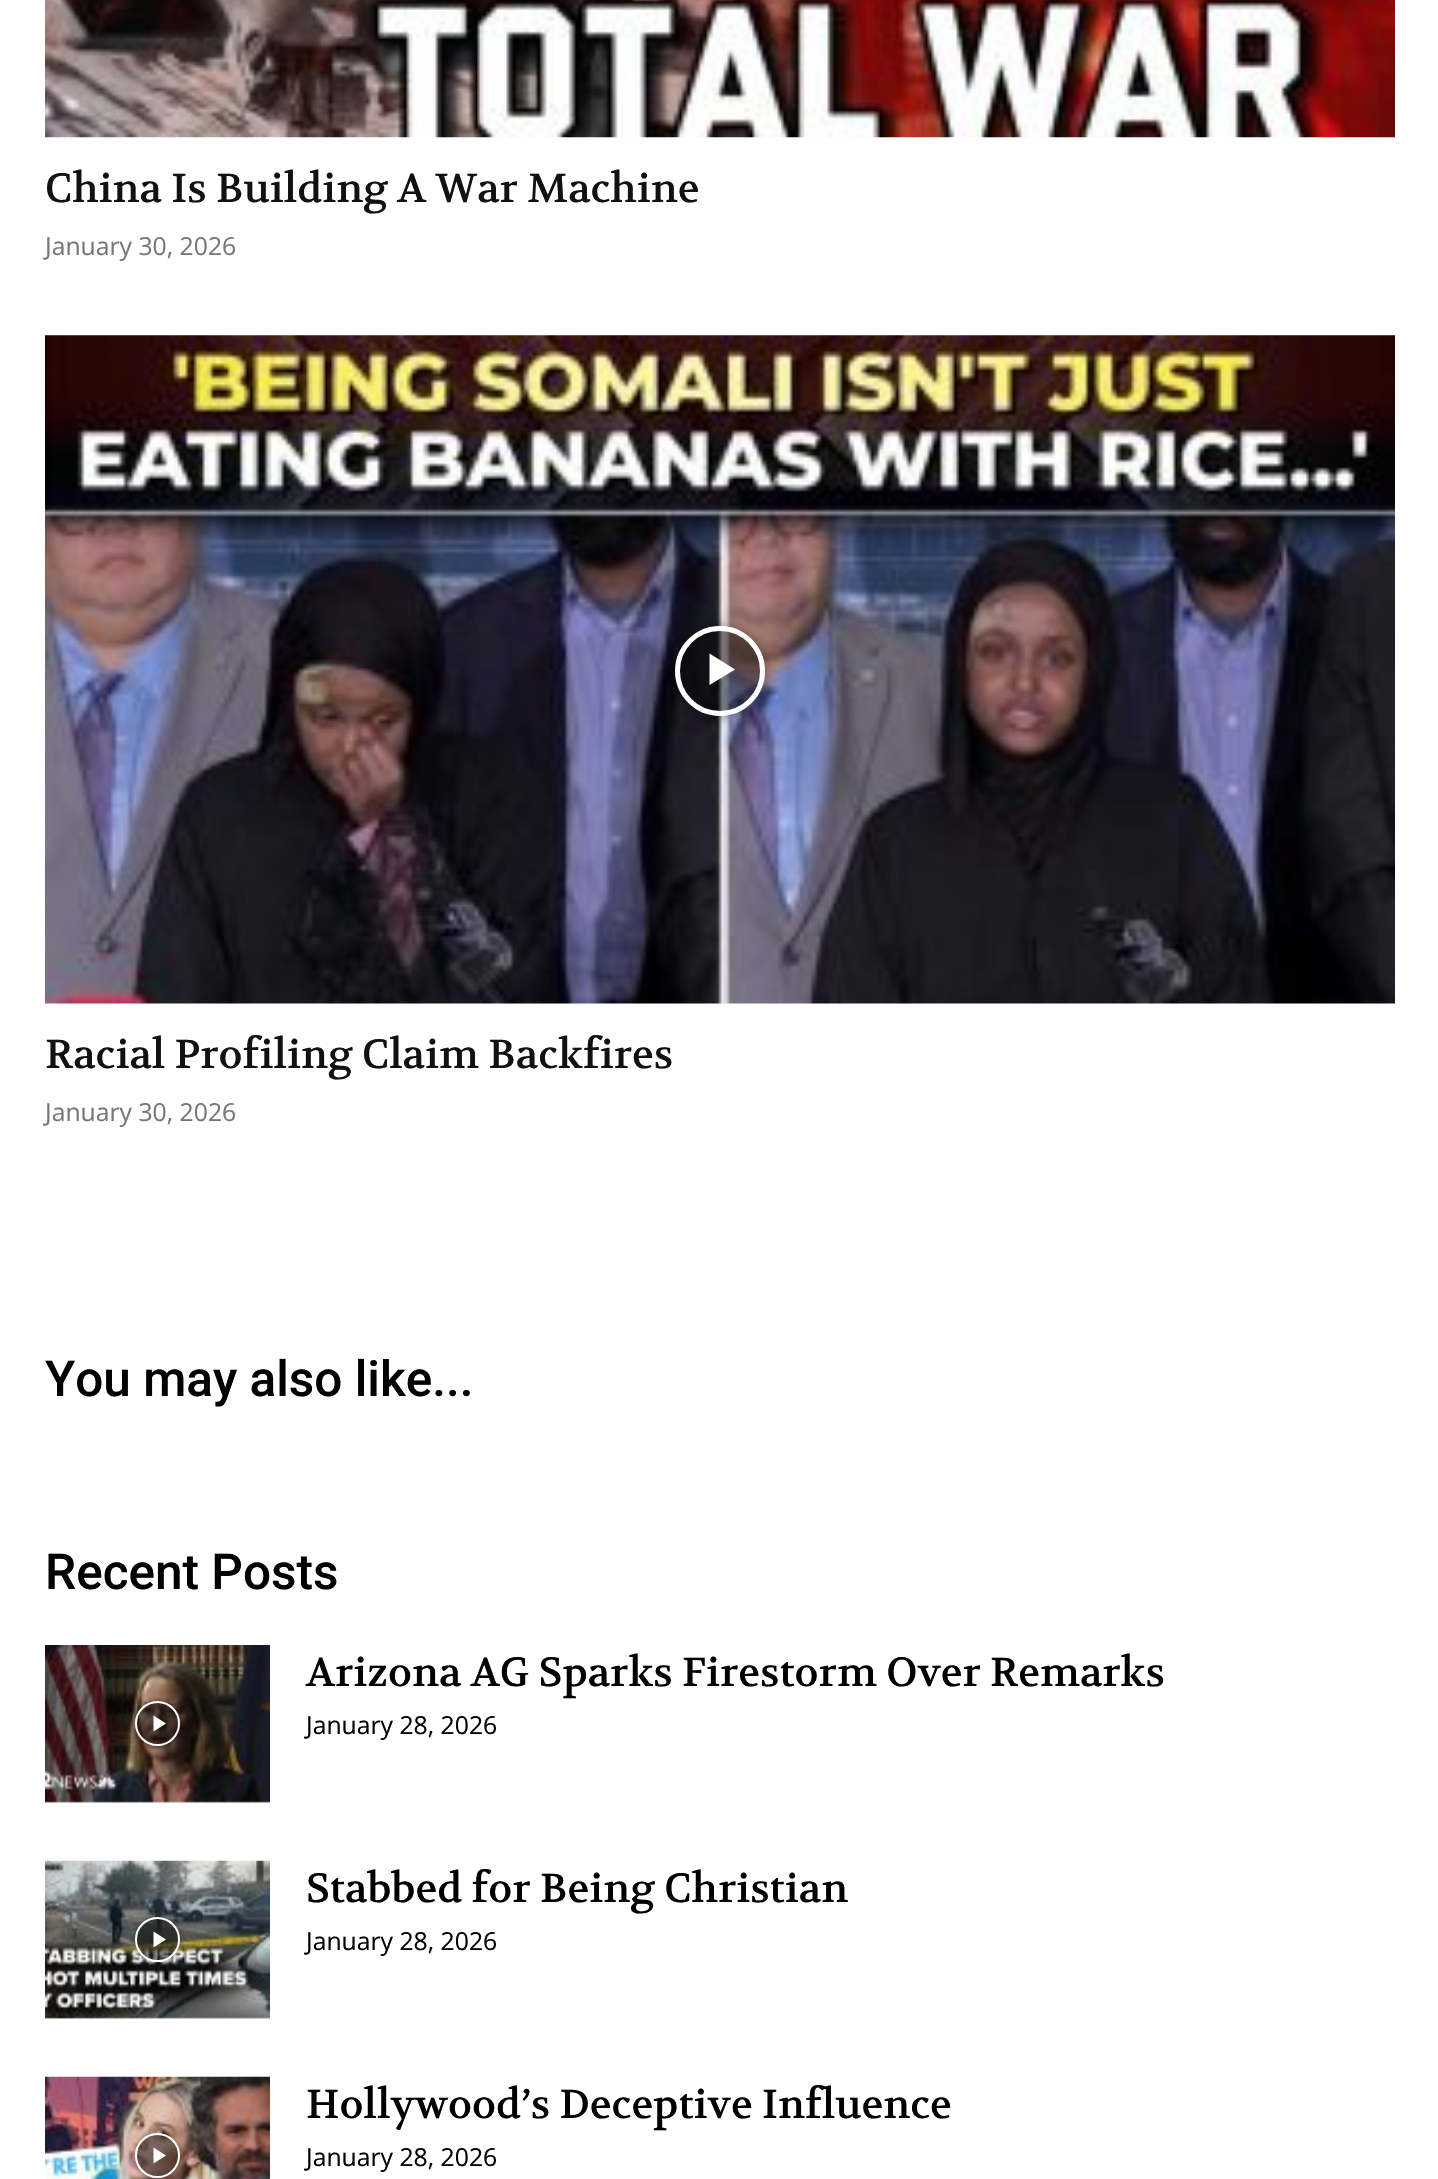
#include "include/core/SkBlurTypes.h"
#include "include/core/SkCanvas.h"
#include "include/core/SkData.h"
#include "include/core/SkFont.h"
#include "include/core/SkFontMgr.h"
#include "include/core/SkImage.h"
#include "include/core/SkMaskFilter.h"
#include "include/core/SkPaint.h"
#include "include/core/SkPathBuilder.h"
#include "include/core/SkTextBlob.h"
#include "include/effects/SkDashPathEffect.h"
#include "include/effects/SkGradientShader.h"
#include "include/utils/SkParsePath.h"

extern sk_sp<SkFontMgr> fontMgr;

static SkFont font(const char* family, int weight, float size, bool italic = false) {
    SkFontStyle style(weight, SkFontStyle::kNormal_Width,
        italic ? SkFontStyle::kItalic_Slant : SkFontStyle::kUpright_Slant);
    SkFont result(fontMgr->matchFamilyStyle(family, style), size);
    result.setSubpixel(true);
    return result;
}

static void drawLabel(SkCanvas* canvas, const char* s, float x, float y, const SkFont& font, SkColor color) {
    SkPaint ink(SkColor4f::FromColor(color));
    ink.setAntiAlias(true);
    canvas->drawString(s, x, y, font, ink);
}

static void drawPhoto(SkCanvas* canvas, const char* path, float x, float y, float w, float h) {
    auto image = SkImages::DeferredFromEncodedData(SkData::MakeFromFileName(path));
    canvas->drawImageRect(image, SkRect::MakeXYWH(x, y, w, h), SkSamplingOptions());
}

static SkPath parsePath(const char* data, bool evenOdd = false) {
    SkPath result = *SkParsePath::FromSVGString(data);
    if (evenOdd) result.setFillType(SkPathFillType::kEvenOdd);
    return result;
}

void draw(SkCanvas* canvas) {
    SkPaint paint;
    paint.setAntiAlias(true);
    canvas->clear(0xFFFFFFFF);
    drawPhoto(canvas, "assets/img1.png", 45, 0, 1350, 138);
    SkFont font1 = font("Volkhov", 400, 40.5f);
    drawLabel(canvas, "China Is Building A War Machine", 45, 202, font1, 0xFF111111);
    SkFont font2 = font("Open Sans", 400, 24.75f);
    drawLabel(canvas, "January 30, 2026", 45, 255, font2, 0xFF767676);
    drawPhoto(canvas, "assets/img2.png", 45, 335, 1350, 669);
    canvas->save();
    canvas->clipPath(parsePath("M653 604H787V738H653ZM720 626C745 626 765 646 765 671C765 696 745 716 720 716C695 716 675 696 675 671C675 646 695 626 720 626Z", true), true);
    paint.setColor(0x66000000);
    paint.setMaskFilter(SkMaskFilter::MakeBlur(kNormal_SkBlurStyle, 7));
    canvas->drawRoundRect(SkRect::MakeXYWH(675, 626, 90, 90), 45, 45, paint);
    paint.setMaskFilter(nullptr);
    canvas->restore();
    paint.setColor(0x7A000000);
    canvas->drawCircle(720, 671, 42.5f, paint);
    paint.setStroke(true);
    paint.setStrokeWidth(5);
    paint.setColor(0xFFFFFFFF);
    canvas->drawCircle(720, 671, 42.5f, paint);
    paint.setStroke(false);
    canvas->drawPath(parsePath("M709.5 653.5V685L735 669.5Z"), paint);
    drawLabel(canvas, "Racial Profiling Claim Backfires", 45, 1068, font1, 0xFF111111);
    drawLabel(canvas, "January 30, 2026", 45, 1121, font2, 0xFF767676);
    SkFont font3 = font("Roboto", 500, 49.5f);
    drawLabel(canvas, "You may also like...", 45, 1396, font3, 0xFF000000);
    drawLabel(canvas, "Recent Posts", 45, 1589, font3, 0xFF000000);
    drawPhoto(canvas, "assets/img3.png", 45, 1645, 225, 158);
    canvas->save();
    canvas->clipPath(parsePath("M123 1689H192V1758H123ZM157.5 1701C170 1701 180 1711 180 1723.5C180 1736 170 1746 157.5 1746C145 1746 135 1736 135 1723.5C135 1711 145 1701 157.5 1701Z", true), true);
    paint.setColor(0x66000000);
    paint.setMaskFilter(SkMaskFilter::MakeBlur(kNormal_SkBlurStyle, 3.5f));
    canvas->drawRoundRect(SkRect::MakeXYWH(135, 1701, 45, 45), 22.5f, 22.5f, paint);
    paint.setMaskFilter(nullptr);
    canvas->restore();
    paint.setColor(0x7A000000);
    canvas->drawCircle(157.5f, 1723.5f, 21.5f, paint);
    paint.setStroke(true);
    paint.setStrokeWidth(2);
    paint.setColor(0xFFFFFFFF);
    canvas->drawCircle(157.5f, 1723.5f, 21.5f, paint);
    paint.setStroke(false);
    canvas->drawPath(parsePath("M153.5 1715.5V1731.5L166 1723.5Z"), paint);
    drawLabel(canvas, "Arizona AG Sparks Firestorm Over Remarks", 306, 1686, font1, 0xFF000000);
    drawLabel(canvas, "January 28, 2026", 306, 1734, font2, 0xFF000000);
    drawPhoto(canvas, "assets/img4.png", 45, 1860, 225, 159);
    canvas->save();
    canvas->clipPath(parsePath("M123 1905H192V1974H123ZM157.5 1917C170 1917 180 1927 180 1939.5C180 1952 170 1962 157.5 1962C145 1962 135 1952 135 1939.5C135 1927 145 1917 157.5 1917Z", true), true);
    paint.setColor(0x66000000);
    paint.setMaskFilter(SkMaskFilter::MakeBlur(kNormal_SkBlurStyle, 3.5f));
    canvas->drawRoundRect(SkRect::MakeXYWH(135, 1917, 45, 45), 22.5f, 22.5f, paint);
    paint.setMaskFilter(nullptr);
    canvas->restore();
    paint.setColor(0x7A000000);
    canvas->drawCircle(157.5f, 1939.5f, 21.5f, paint);
    paint.setStroke(true);
    paint.setColor(0xFFFFFFFF);
    canvas->drawCircle(157.5f, 1939.5f, 21.5f, paint);
    paint.setStroke(false);
    canvas->drawPath(parsePath("M153.5 1931.5V1947.5L166 1939.5Z"), paint);
    drawLabel(canvas, "Stabbed for Being Christian", 306, 1902, font1, 0xFF000000);
    drawLabel(canvas, "January 28, 2026", 306, 1950, font2, 0xFF000000);
    drawPhoto(canvas, "assets/img5.png", 45, 2076, 225, 103);
    canvas->save();
    canvas->clipPath(parsePath("M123 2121H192V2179H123ZM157.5 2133C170 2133 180 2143 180 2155.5C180 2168 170 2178 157.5 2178C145 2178 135 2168 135 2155.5C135 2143 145 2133 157.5 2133Z", true), true);
    paint.setColor(0x66000000);
    paint.setMaskFilter(SkMaskFilter::MakeBlur(kNormal_SkBlurStyle, 3.5f));
    canvas->drawRoundRect(SkRect::MakeXYWH(135, 2133, 45, 45), 22.5f, 22.5f, paint);
    paint.setMaskFilter(nullptr);
    canvas->restore();
    paint.setColor(0x7A000000);
    canvas->drawCircle(157.5f, 2155.5f, 21.5f, paint);
    paint.setStroke(true);
    paint.setColor(0xFFFFFFFF);
    canvas->drawCircle(157.5f, 2155.5f, 21.5f, paint);
    paint.setStroke(false);
    canvas->drawPath(parsePath("M153.5 2147.5V2163.5L166 2155.5Z"), paint);
    drawLabel(canvas, "Hollywood’s Deceptive Influence", 306, 2118, font1, 0xFF000000);
    drawLabel(canvas, "January 28, 2026", 306, 2166, font2, 0xFF000000);
}
